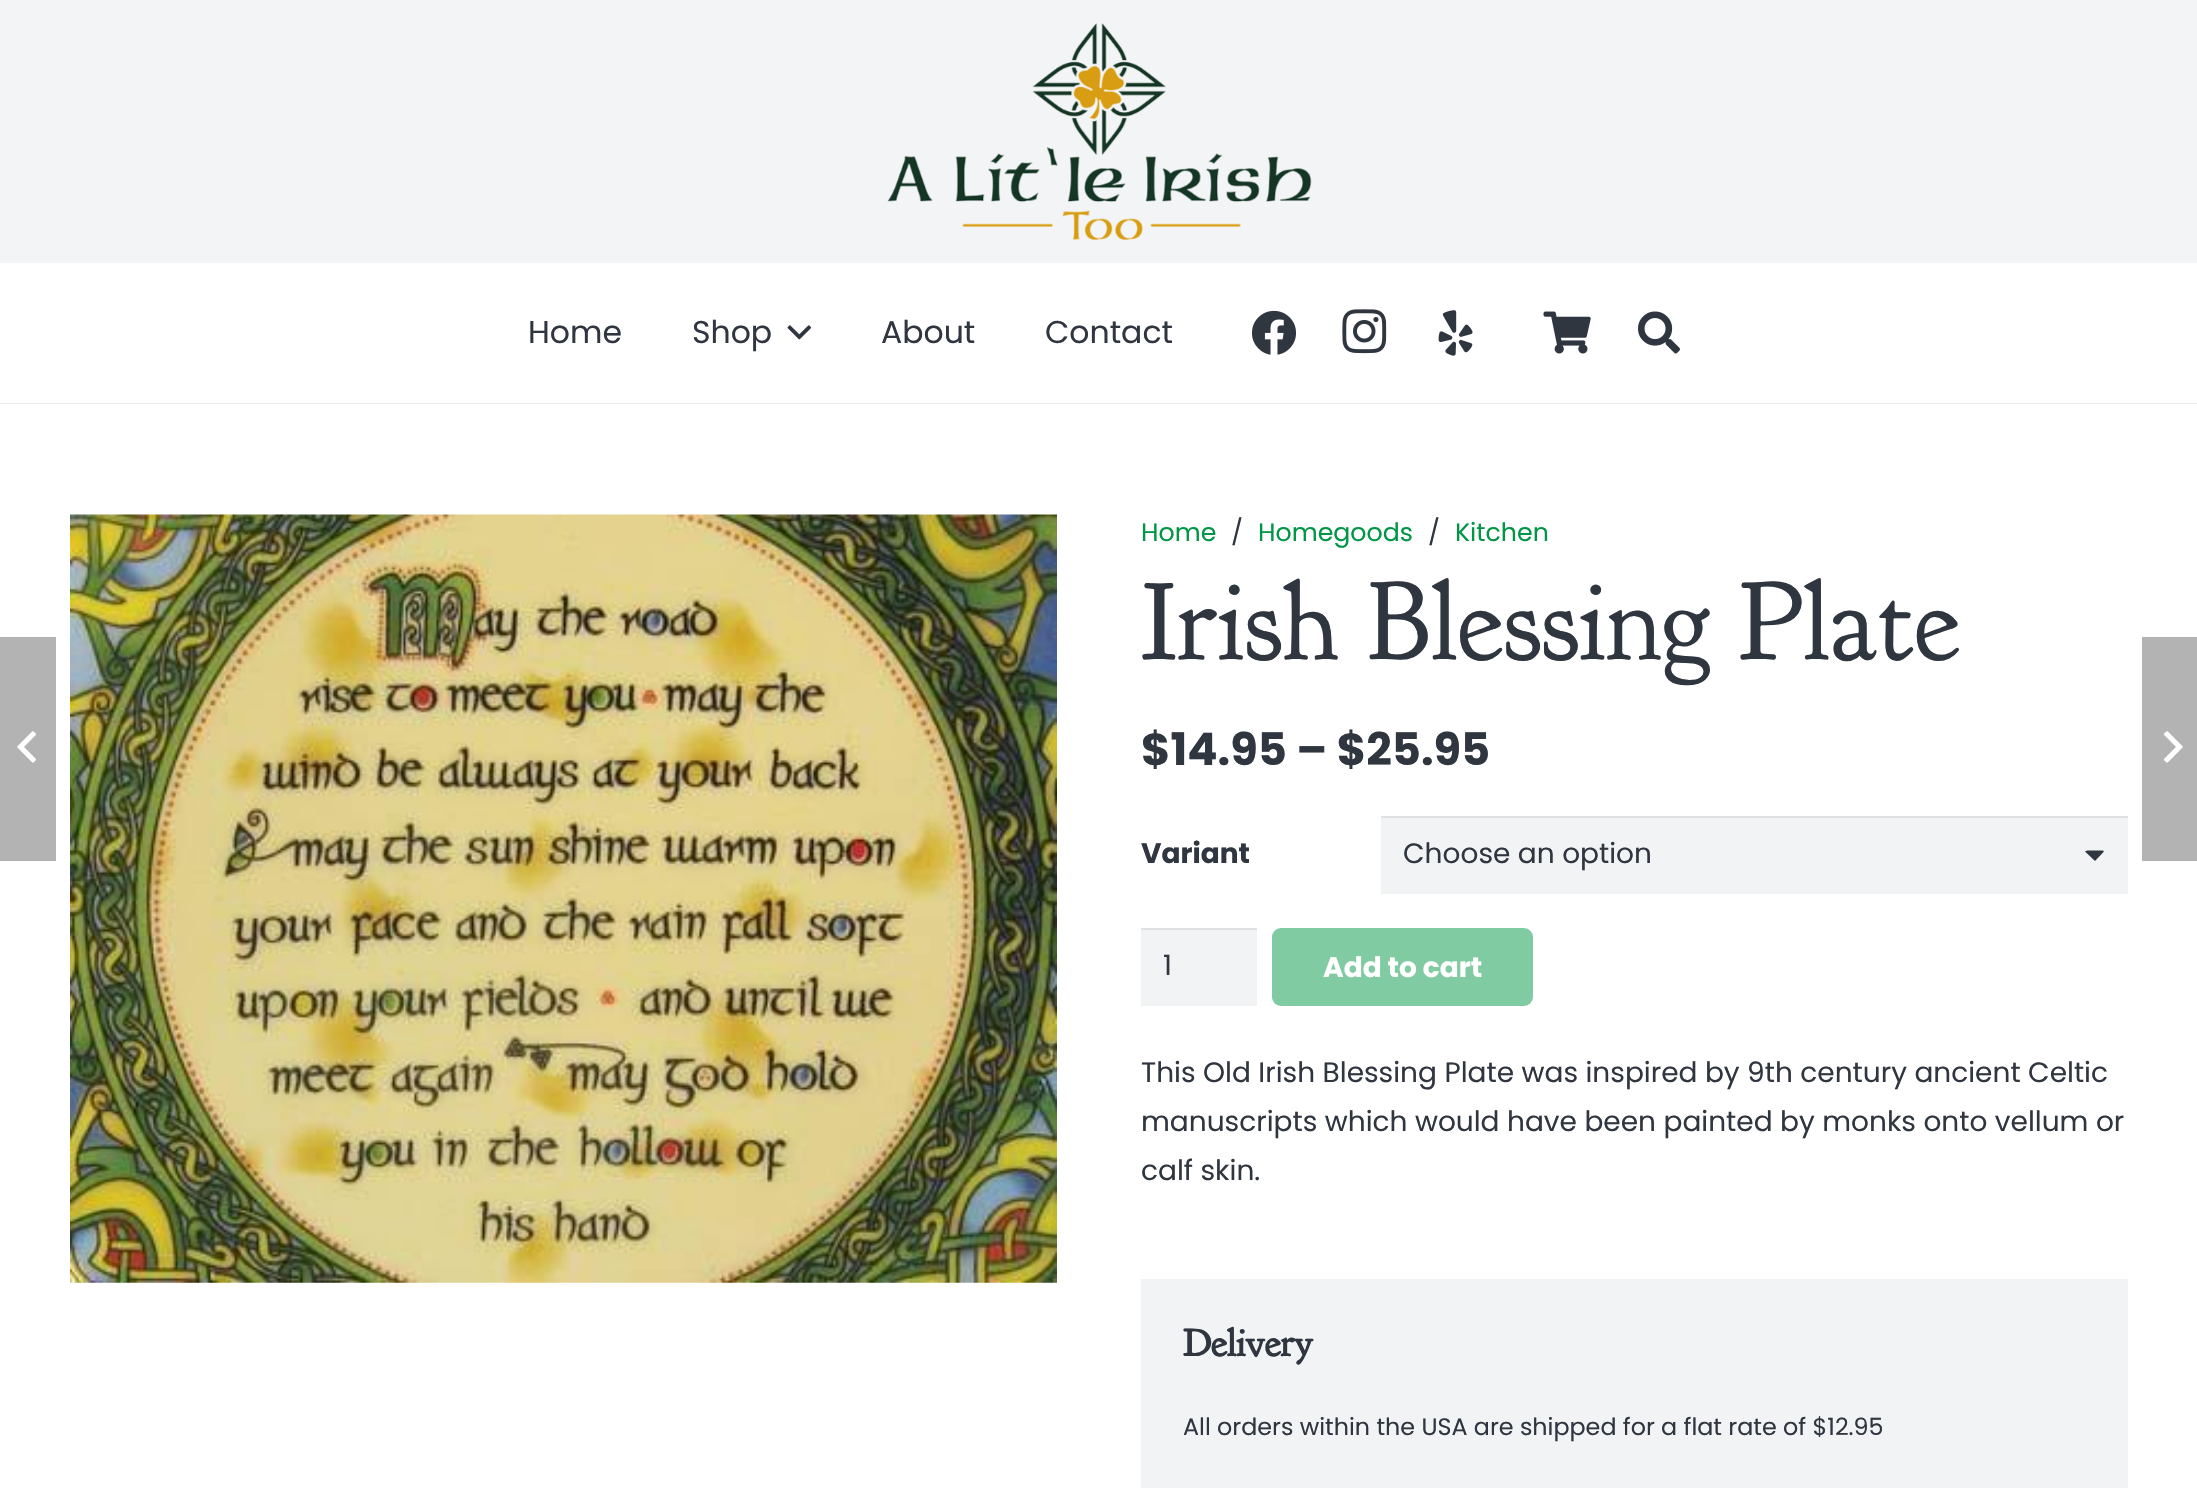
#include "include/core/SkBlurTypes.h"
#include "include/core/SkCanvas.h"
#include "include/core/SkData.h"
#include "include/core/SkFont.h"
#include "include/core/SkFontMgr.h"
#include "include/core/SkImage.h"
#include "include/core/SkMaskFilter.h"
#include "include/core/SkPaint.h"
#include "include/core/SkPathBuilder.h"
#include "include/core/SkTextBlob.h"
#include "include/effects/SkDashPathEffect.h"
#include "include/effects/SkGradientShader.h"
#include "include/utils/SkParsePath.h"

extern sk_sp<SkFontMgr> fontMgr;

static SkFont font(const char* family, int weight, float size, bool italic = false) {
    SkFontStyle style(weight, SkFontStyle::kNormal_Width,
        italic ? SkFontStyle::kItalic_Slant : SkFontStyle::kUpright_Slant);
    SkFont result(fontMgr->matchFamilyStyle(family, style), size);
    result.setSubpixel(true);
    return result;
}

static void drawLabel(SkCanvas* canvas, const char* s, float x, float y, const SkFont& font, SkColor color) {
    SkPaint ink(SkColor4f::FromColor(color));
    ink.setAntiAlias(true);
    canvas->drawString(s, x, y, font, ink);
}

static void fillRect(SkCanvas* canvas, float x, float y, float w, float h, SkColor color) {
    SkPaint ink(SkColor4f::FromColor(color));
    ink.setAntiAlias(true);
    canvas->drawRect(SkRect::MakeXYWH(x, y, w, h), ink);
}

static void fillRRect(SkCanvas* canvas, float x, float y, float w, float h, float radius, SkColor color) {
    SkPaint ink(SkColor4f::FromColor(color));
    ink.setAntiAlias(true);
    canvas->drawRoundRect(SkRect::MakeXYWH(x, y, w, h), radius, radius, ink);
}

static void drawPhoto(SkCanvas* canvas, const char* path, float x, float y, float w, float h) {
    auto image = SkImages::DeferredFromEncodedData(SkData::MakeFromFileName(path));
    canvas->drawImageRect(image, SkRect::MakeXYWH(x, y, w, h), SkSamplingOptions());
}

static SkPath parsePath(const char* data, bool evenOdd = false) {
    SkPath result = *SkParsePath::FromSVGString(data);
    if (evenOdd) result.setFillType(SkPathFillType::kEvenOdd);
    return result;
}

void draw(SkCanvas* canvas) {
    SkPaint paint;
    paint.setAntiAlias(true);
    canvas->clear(0xFFFFFFFF);
    fillRect(canvas, 0, 0, 2197, 263, 0xFFF3F4F6);
    drawPhoto(canvas, "assets/img1.png", 887, 23, 425, 218);
    fillRect(canvas, 0, 403, 2197, 1, 0xFFEBEBEB);
    SkFont font1 = font("Poppins", 400, 31.5f);
    drawLabel(canvas, "Home", 528, 343, font1, 0xFF303640);
    drawLabel(canvas, "Shop", 692, 343, font1, 0xFF303640);
    drawPhoto(canvas, "assets/img2.png", 787, 325, 25, 15);
    drawLabel(canvas, "About", 881, 343, font1, 0xFF303640);
    drawLabel(canvas, "Contact", 1045, 343, font1, 0xFF303640);
    drawPhoto(canvas, "assets/img3.png", 1252, 310, 44, 45);
    drawPhoto(canvas, "assets/img4.png", 1342, 309, 45, 45);
    drawPhoto(canvas, "assets/img5.png", 1438, 310, 35, 46);
    drawPhoto(canvas, "assets/img6.png", 1543, 311, 48, 43);
    drawPhoto(canvas, "assets/img7.png", 1638, 311, 42, 43);
    drawPhoto(canvas, "assets/img8.png", 70, 514, 987, 769);
    SkFont font2 = font("Poppins", 400, 25.25f);
    drawLabel(canvas, "Home", 1141, 541, font2, 0xFF009645);
    drawLabel(canvas, "/", 1231, 541, font2, 0xFF303640);
    drawLabel(canvas, "Homegoods", 1258, 541, font2, 0xFF009645);
    drawLabel(canvas, "/", 1428, 541, font2, 0xFF303640);
    drawLabel(canvas, "Kitchen", 1455, 541, font2, 0xFF009645);
    SkFont font3 = font("Goudy Bookletter 1911", 400, 112);
    drawLabel(canvas, "Irish Blessing Plate", 1141, 659, font3, 0xFF303640);
    SkFont font4 = font("Poppins", 700, 44.75f);
    drawLabel(canvas, "$14.95 – $25.95", 1141, 765, font4, 0xFF303640);
    SkFont font5 = font("Poppins", 700, 28);
    drawLabel(canvas, "Variant", 1141, 863, font5, 0xFF303640);
    fillRect(canvas, 1381, 818, 747, 76, 0xFFF2F3F5);
    fillRect(canvas, 1381, 816, 747, 2, 0xFFDFE0E1);
    SkFont font6 = font("Poppins", 400, 28);
    drawLabel(canvas, "Choose an option", 1403, 863, font6, 0xFF303640);
    paint.setColor(0xFF303640);
    canvas->drawPath(parsePath("M2088 850.5C2087 850.5 2086 851 2085 851.5L2095 861L2104 851.5C2103.5 851 2103 850.5 2102 850.5Z"), paint);
    fillRect(canvas, 1141, 930, 116, 76, 0xFFF2F3F5);
    fillRect(canvas, 1141, 928, 116, 2, 0xFFDFE0E1);
    drawLabel(canvas, "1", 1163, 975, font6, 0xFF303640);
    fillRRect(canvas, 1272, 928, 261, 78, 9, 0xFF80CBA2);
    drawLabel(canvas, "Add to cart", 1323, 977, font5, 0xFFFFFFFF);
    drawLabel(canvas, "This Old Irish Blessing Plate was inspired by 9th century ancient Celtic", 1141, 1082, font6, 0xFF303640);
    drawLabel(canvas, "manuscripts which would have been painted by monks onto vellum or", 1141, 1131, font6, 0xFF303640);
    drawLabel(canvas, "calf skin.", 1141, 1180, font6, 0xFF303640);
    fillRect(canvas, 1141, 1279, 987, 209, 0xFFF2F3F5);
    SkFont font7 = font("Goudy Bookletter 1911", 700, 39);
    drawLabel(canvas, "Delivery", 1183, 1356, font7, 0xFF303640);
    SkFont font8 = font("Poppins", 400, 23.8f);
    drawLabel(canvas, "All orders within the USA are shipped for a flat rate of $12.95", 1183, 1435, font8, 0xFF303640);
    fillRect(canvas, 0, 637, 56, 224, 0xFFB3B3B3);
    drawPhoto(canvas, "assets/img9.png", 17, 731, 19, 32);
    fillRect(canvas, 2142, 637, 55, 224, 0xFFB3B3B3);
    drawPhoto(canvas, "assets/img10.png", 2163, 731, 20, 32);
}
